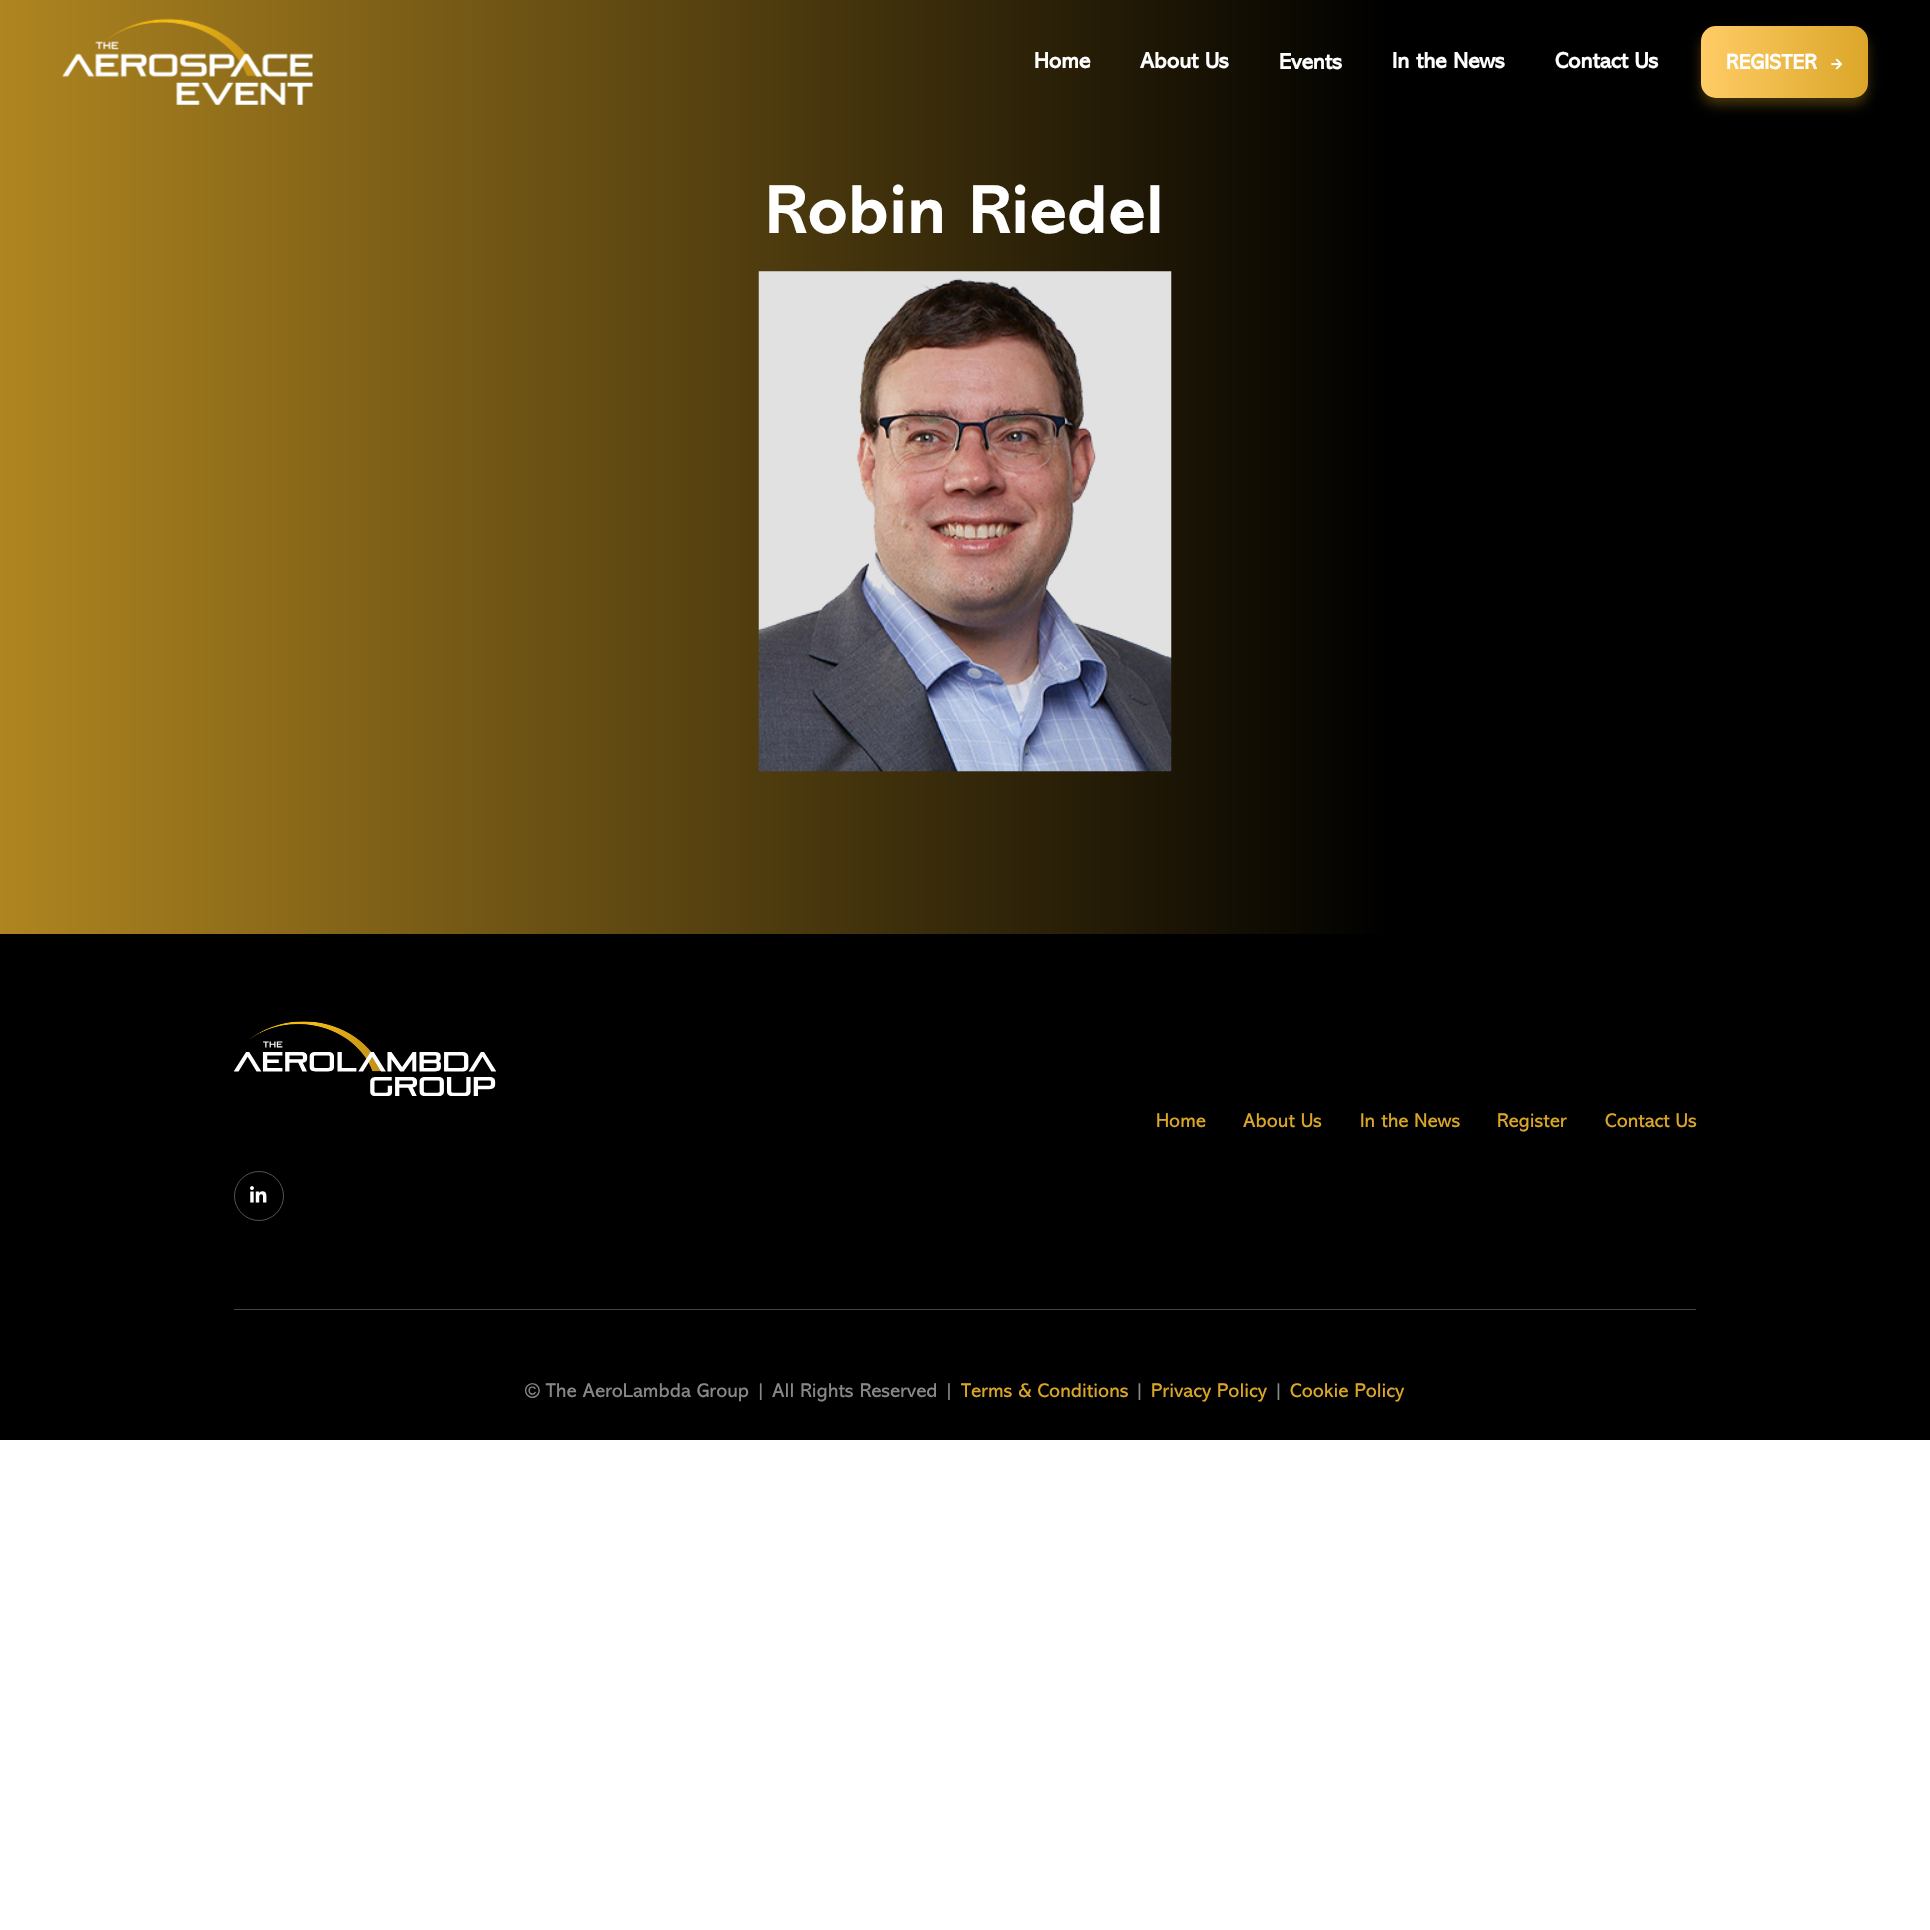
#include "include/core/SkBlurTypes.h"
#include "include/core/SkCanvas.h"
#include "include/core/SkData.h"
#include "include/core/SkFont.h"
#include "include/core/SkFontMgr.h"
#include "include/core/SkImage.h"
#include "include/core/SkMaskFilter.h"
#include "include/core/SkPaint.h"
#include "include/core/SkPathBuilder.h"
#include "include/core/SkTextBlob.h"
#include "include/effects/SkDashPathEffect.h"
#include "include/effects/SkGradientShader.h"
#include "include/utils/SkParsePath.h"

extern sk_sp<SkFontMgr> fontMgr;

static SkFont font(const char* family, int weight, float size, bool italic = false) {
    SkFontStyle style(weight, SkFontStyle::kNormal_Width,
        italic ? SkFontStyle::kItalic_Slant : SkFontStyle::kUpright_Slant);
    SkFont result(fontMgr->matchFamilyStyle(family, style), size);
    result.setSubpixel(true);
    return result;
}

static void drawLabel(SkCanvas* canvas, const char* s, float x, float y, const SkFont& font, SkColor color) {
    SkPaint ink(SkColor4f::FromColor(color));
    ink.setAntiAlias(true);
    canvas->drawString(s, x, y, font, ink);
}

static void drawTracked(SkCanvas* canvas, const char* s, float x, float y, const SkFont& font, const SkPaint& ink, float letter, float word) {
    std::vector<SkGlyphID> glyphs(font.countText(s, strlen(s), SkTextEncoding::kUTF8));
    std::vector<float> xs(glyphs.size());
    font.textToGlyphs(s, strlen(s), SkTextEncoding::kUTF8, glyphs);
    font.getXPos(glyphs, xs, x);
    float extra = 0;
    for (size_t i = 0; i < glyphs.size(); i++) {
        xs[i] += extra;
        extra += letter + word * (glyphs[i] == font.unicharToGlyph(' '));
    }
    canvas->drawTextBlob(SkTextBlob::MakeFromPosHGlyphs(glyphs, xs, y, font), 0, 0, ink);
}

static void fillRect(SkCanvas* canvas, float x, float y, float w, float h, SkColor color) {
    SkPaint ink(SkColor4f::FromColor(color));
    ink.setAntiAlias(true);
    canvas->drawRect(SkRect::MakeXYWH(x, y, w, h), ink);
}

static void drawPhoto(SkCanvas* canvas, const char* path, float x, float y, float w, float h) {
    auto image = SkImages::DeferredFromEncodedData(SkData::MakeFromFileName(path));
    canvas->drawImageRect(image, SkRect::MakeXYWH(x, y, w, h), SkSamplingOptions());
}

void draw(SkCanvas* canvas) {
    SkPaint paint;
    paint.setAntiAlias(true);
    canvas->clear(0xFFFFFFFF);
    {
        const SkColor colors[] = {0xFF000000, 0xFFAF8520};
        const float stops[] = {0.28f, 1};
        const SkPoint ends[] = {{1930, 467}, {0, 467}};
        paint.setShader(SkGradientShader::MakeLinear(ends, colors, stops, 2, SkTileMode::kClamp));
        paint.setAlpha(255);
    }
    canvas->drawRect(SkRect::MakeXYWH(0, 0, 1930, 934), paint);
    drawPhoto(canvas, "assets/img1.png", 62, 18, 251, 87);
    SkFont font1 = font("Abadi", 700, 22.5f);
    drawLabel(canvas, "Home", 1034, 68, font1, 0xFFFFFFFF);
    drawLabel(canvas, "About Us", 1140, 68, font1, 0xFFFFFFFF);
    drawLabel(canvas, "Events", 1279, 69, font1, 0xFFFFFFFF);
    drawLabel(canvas, "In the News", 1392, 68, font1, 0xFFFFFFFF);
    drawLabel(canvas, "Contact Us", 1555, 68, font1, 0xFFFFFFFF);
    paint.setShader(nullptr);
    paint.setColor(0x4DDBA628);
    paint.setMaskFilter(SkMaskFilter::MakeBlur(kNormal_SkBlurStyle, 6));
    canvas->drawRoundRect(SkRect::MakeXYWH(1701, 34, 167, 71), 15, 15, paint);
    paint.setMaskFilter(nullptr);
    {
        const SkColor colors[] = {0xFFFFCC66, 0xFFDBA628};
        const float stops[] = {0, 1};
        const SkPoint ends[] = {{1701, 62}, {1868, 62}};
        paint.setShader(SkGradientShader::MakeLinear(ends, colors, stops, 2, SkTileMode::kClamp));
        paint.setAlpha(255);
    }
    canvas->drawRoundRect(SkRect::MakeXYWH(1701, 26, 167, 72), 15, 15, paint);
    SkFont font2 = font("Abadi", 700, 21.25f);
    paint.setShader(nullptr);
    paint.setColor(0xFFFFFFFF);
    drawTracked(canvas, "REGISTER", 1726, 69, font2, paint, 0.5f, 0);
    drawPhoto(canvas, "assets/img2.png", 1831, 58, 12, 12);
    SkFont font3 = font("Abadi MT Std", 700, 70);
    drawLabel(canvas, "Robin Riedel", 765, 233, font3, 0xFFFFFFFF);
    drawPhoto(canvas, "assets/img3.png", 758, 271, 414, 501);
    fillRect(canvas, 0, 934, 1930, 506, 0xFF000000);
    fillRect(canvas, 234, 1309, 1462, 1, 0xFF444444);
    drawPhoto(canvas, "assets/img4.png", 234, 1021, 262, 75);
    paint.setStroke(true);
    paint.setStrokeWidth(1);
    paint.setColor(0xFF525252);
    canvas->drawCircle(259, 1196, 24.5f, paint);
    drawPhoto(canvas, "assets/img5.png", 250, 1186, 17, 17);
    SkFont font4 = font("Abadi", 400, 20);
    drawLabel(canvas, "Home", 1156, 1127, font4, 0xFFDBA628);
    drawLabel(canvas, "About Us", 1243, 1127, font4, 0xFFDBA628);
    drawLabel(canvas, "In the News", 1360, 1127, font4, 0xFFDBA628);
    drawLabel(canvas, "Register", 1497, 1127, font4, 0xFFDBA628);
    drawLabel(canvas, "Contact Us", 1605, 1127, font4, 0xFFDBA628);
    drawLabel(canvas, "© The AeroLambda Group | All Rights Reserved |", 525, 1397, font4, 0xFF888888);
    drawLabel(canvas, "Terms & Conditions", 961, 1397, font4, 0xFFDBA628);
    drawLabel(canvas, "|", 1134, 1397, font4, 0xFF888888);
    drawLabel(canvas, "Privacy Policy", 1151, 1397, font4, 0xFFDBA628);
    drawLabel(canvas, "|", 1273, 1397, font4, 0xFF888888);
    drawLabel(canvas, "Cookie Policy", 1290, 1397, font4, 0xFFDBA628);
}
